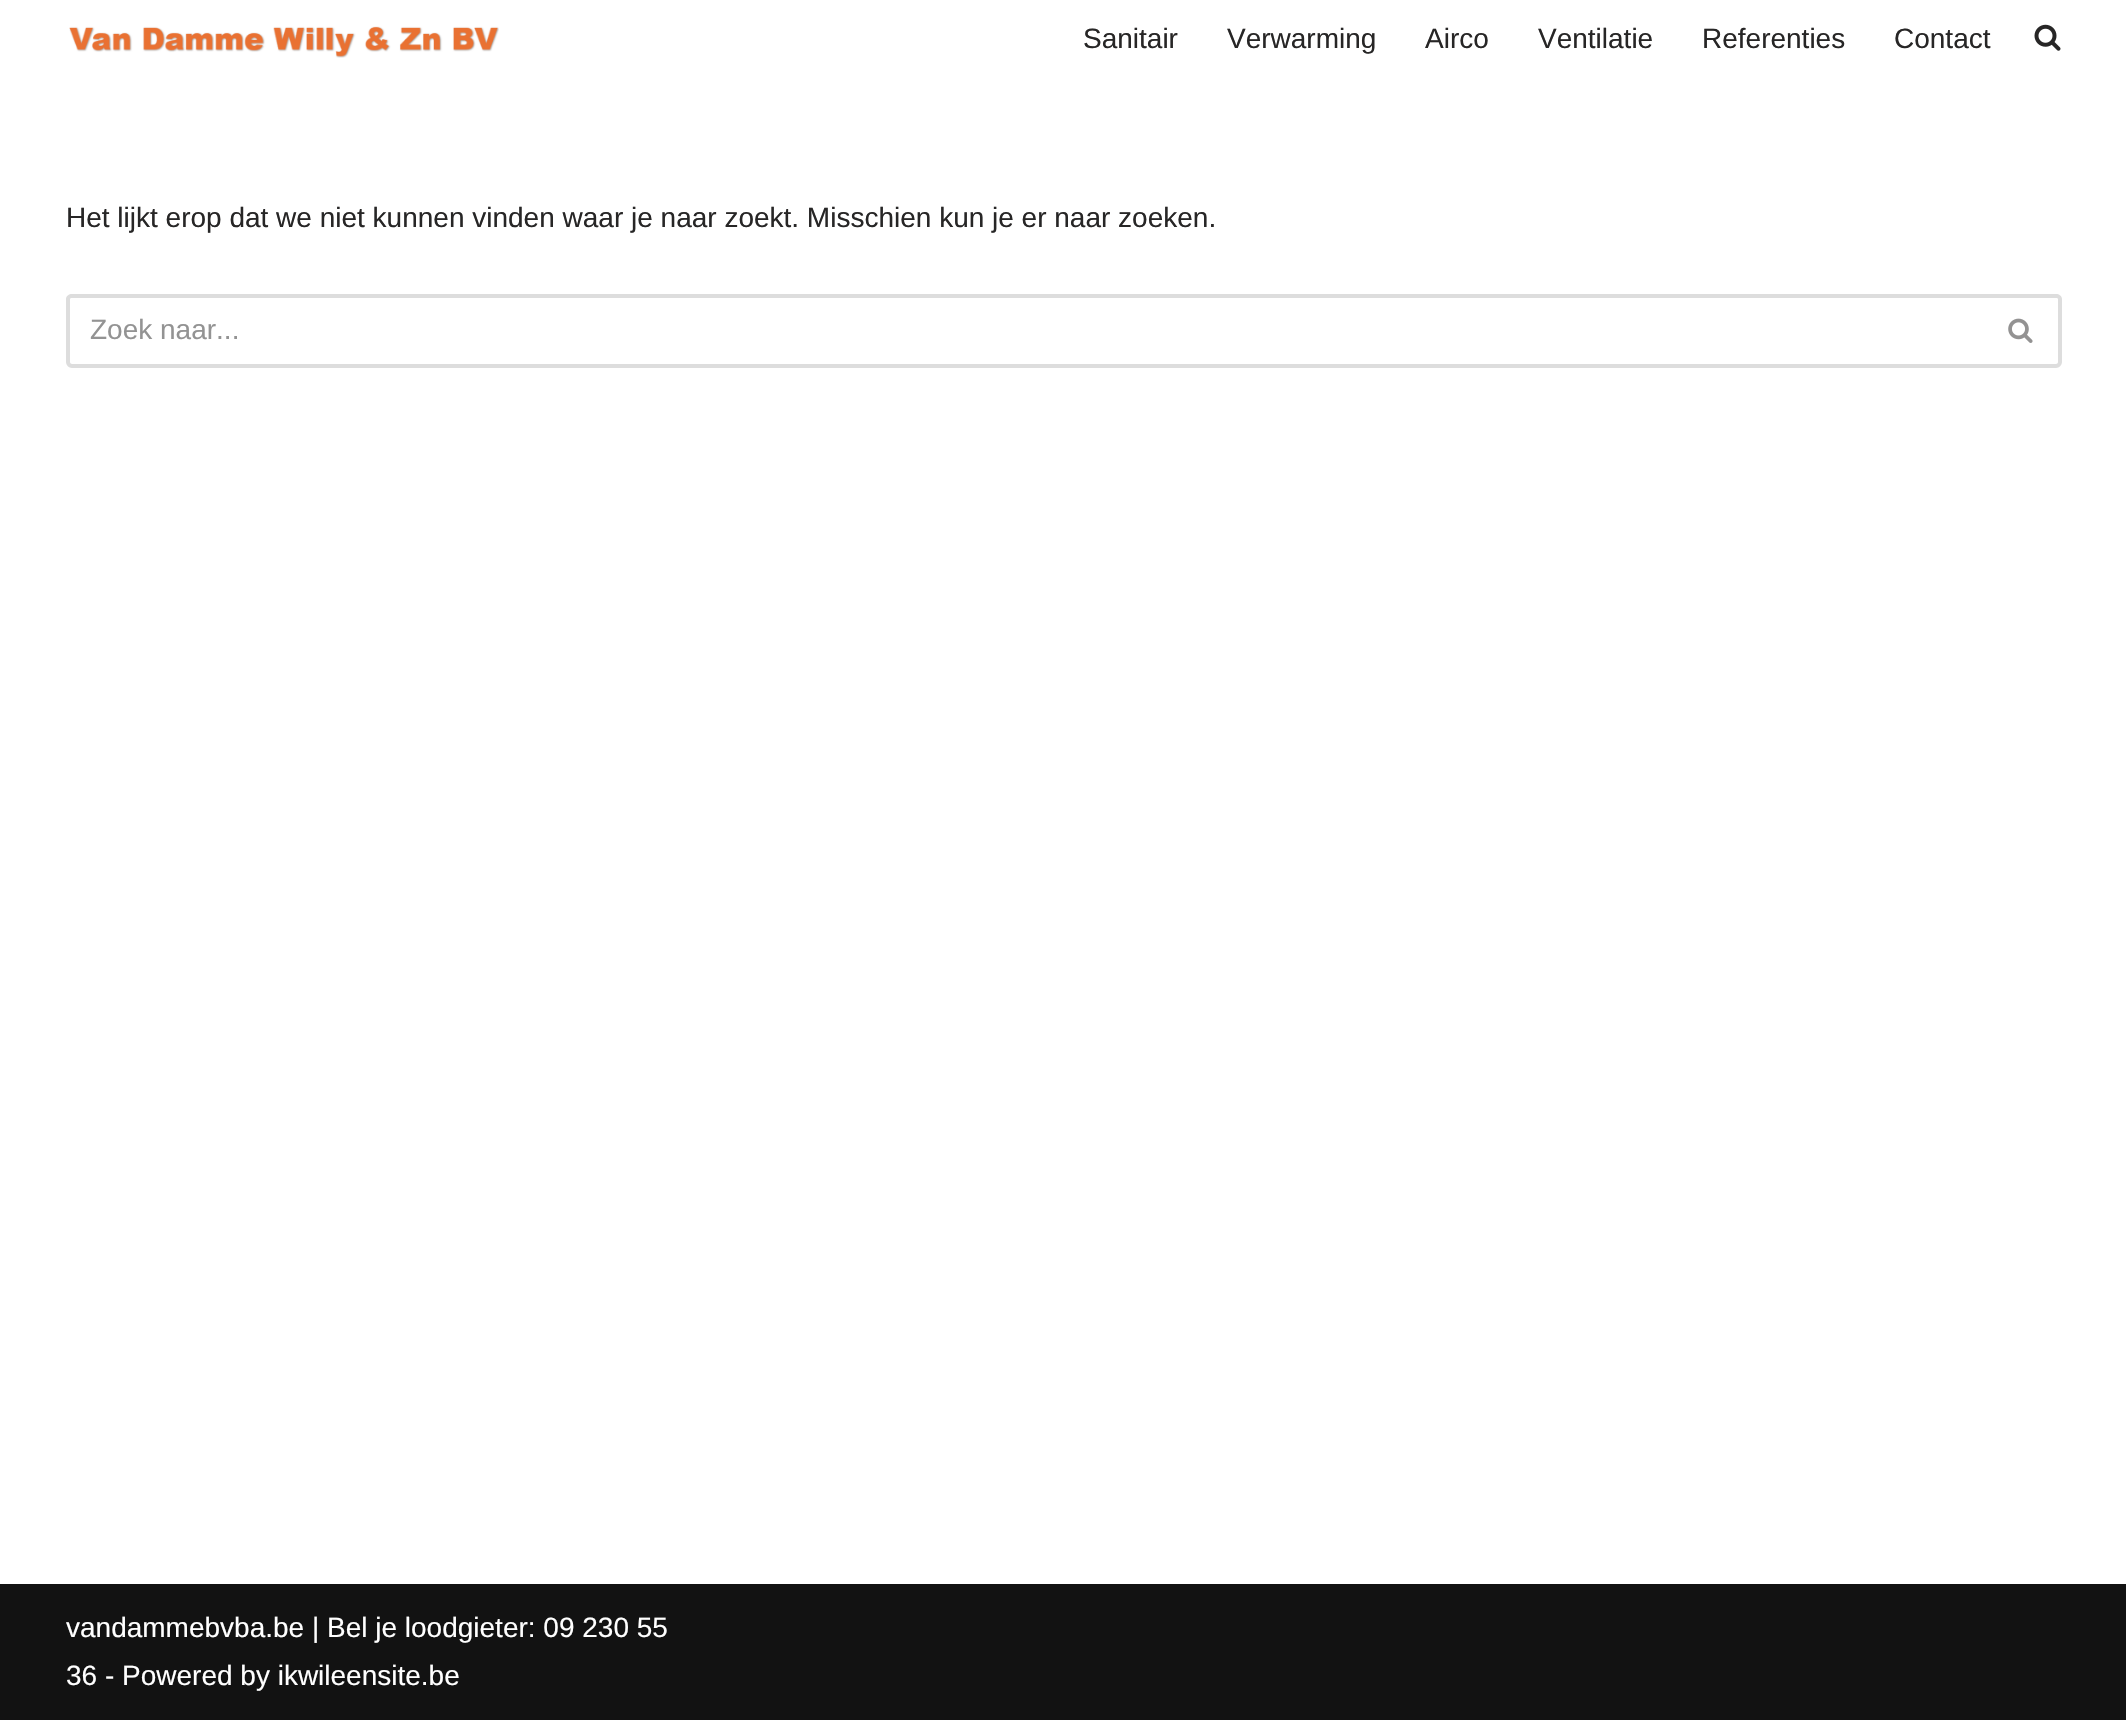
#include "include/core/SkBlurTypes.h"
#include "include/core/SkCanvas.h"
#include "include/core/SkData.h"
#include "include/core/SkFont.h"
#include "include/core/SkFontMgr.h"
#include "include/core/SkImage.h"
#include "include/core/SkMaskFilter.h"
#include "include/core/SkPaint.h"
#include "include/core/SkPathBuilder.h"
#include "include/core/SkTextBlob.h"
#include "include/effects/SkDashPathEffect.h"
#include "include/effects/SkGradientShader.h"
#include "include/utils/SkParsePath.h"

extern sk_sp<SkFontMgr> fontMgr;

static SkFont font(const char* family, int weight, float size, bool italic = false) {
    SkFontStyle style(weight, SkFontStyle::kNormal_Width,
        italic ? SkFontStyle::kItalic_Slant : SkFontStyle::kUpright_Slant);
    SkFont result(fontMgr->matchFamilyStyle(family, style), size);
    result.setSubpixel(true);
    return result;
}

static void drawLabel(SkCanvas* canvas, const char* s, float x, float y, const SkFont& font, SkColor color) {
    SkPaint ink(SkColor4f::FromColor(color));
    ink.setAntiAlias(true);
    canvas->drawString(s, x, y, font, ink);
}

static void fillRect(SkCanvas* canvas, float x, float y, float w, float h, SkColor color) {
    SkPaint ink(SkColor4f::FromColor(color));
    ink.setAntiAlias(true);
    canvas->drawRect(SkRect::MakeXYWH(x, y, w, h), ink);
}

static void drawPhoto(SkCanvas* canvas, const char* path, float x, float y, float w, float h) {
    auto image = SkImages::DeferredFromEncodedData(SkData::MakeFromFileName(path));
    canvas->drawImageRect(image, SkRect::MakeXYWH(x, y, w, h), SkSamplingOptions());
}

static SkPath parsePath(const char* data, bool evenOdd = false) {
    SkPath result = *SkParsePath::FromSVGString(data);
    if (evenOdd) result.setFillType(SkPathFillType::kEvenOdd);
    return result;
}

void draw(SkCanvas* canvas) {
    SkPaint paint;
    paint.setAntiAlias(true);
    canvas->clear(0xFFFFFFFF);
    drawPhoto(canvas, "assets/img1.png", 69, 26, 430, 32);
    SkFont font1 = font("Liberation Sans", 400, 28);
    drawLabel(canvas, "Sanitair", 1083, 48, font1, 0xFF272626);
    drawLabel(canvas, "Verwarming", 1227, 48, font1, 0xFF272626);
    drawLabel(canvas, "Airco", 1425, 48, font1, 0xFF272626);
    drawLabel(canvas, "Ventilatie", 1538, 48, font1, 0xFF272626);
    drawLabel(canvas, "Referenties", 1702, 48, font1, 0xFF272626);
    drawLabel(canvas, "Contact", 1894, 48, font1, 0xFF272626);
    drawPhoto(canvas, "assets/img2.png", 2034, 24, 27, 27);
    drawLabel(canvas, "Het lijkt erop dat we niet kunnen vinden waar je naar zoekt. Misschien kun je er naar zoeken.", 66, 227, font1, 0xFF272626);
    paint.setColor(0xFFDDDDDD);
    canvas->drawPath(parsePath("M72 294H1983V368H72C69 368 66 365 66 362V299C66 296 69 294 72 294ZM72 298H1983V364H72C71 364 70 363 70 362V299C70 298 71 298 72 298Z", true), paint);
    drawLabel(canvas, "Zoek naar...", 90, 339, font1, 0xFF939393);
    canvas->drawPath(parsePath("M1983 294H2056C2059 294 2062 296 2062 299V362C2062 365 2059 368 2056 368H1983ZM1983 298H2056C2057 298 2058 298 2058 299V362C2058 363 2057 364 2056 364H1983Z", true), paint);
    drawPhoto(canvas, "assets/img3.png", 2008, 318, 25, 25);
    canvas->save();
    canvas->clipPath(parsePath("M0 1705H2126V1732H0ZM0 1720H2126V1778H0Z", true), true);
    paint.setColor(0xFF161616);
    paint.setMaskFilter(SkMaskFilter::MakeBlur(kNormal_SkBlurStyle, 4.5f));
    canvas->drawRect(SkRect::MakeXYWH(0, 1720, 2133, 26), paint);
    paint.setMaskFilter(nullptr);
    canvas->restore();
    fillRect(canvas, 0, 1584, 2126, 136, 0xFF121212);
    drawLabel(canvas, "vandammebvba.be | Bel je loodgieter: 09 230 55", 66, 1637, font1, 0xFFFFFFFF);
    drawLabel(canvas, "36 - Powered by ikwileensite.be", 66, 1685, font1, 0xFFFFFFFF);
}
